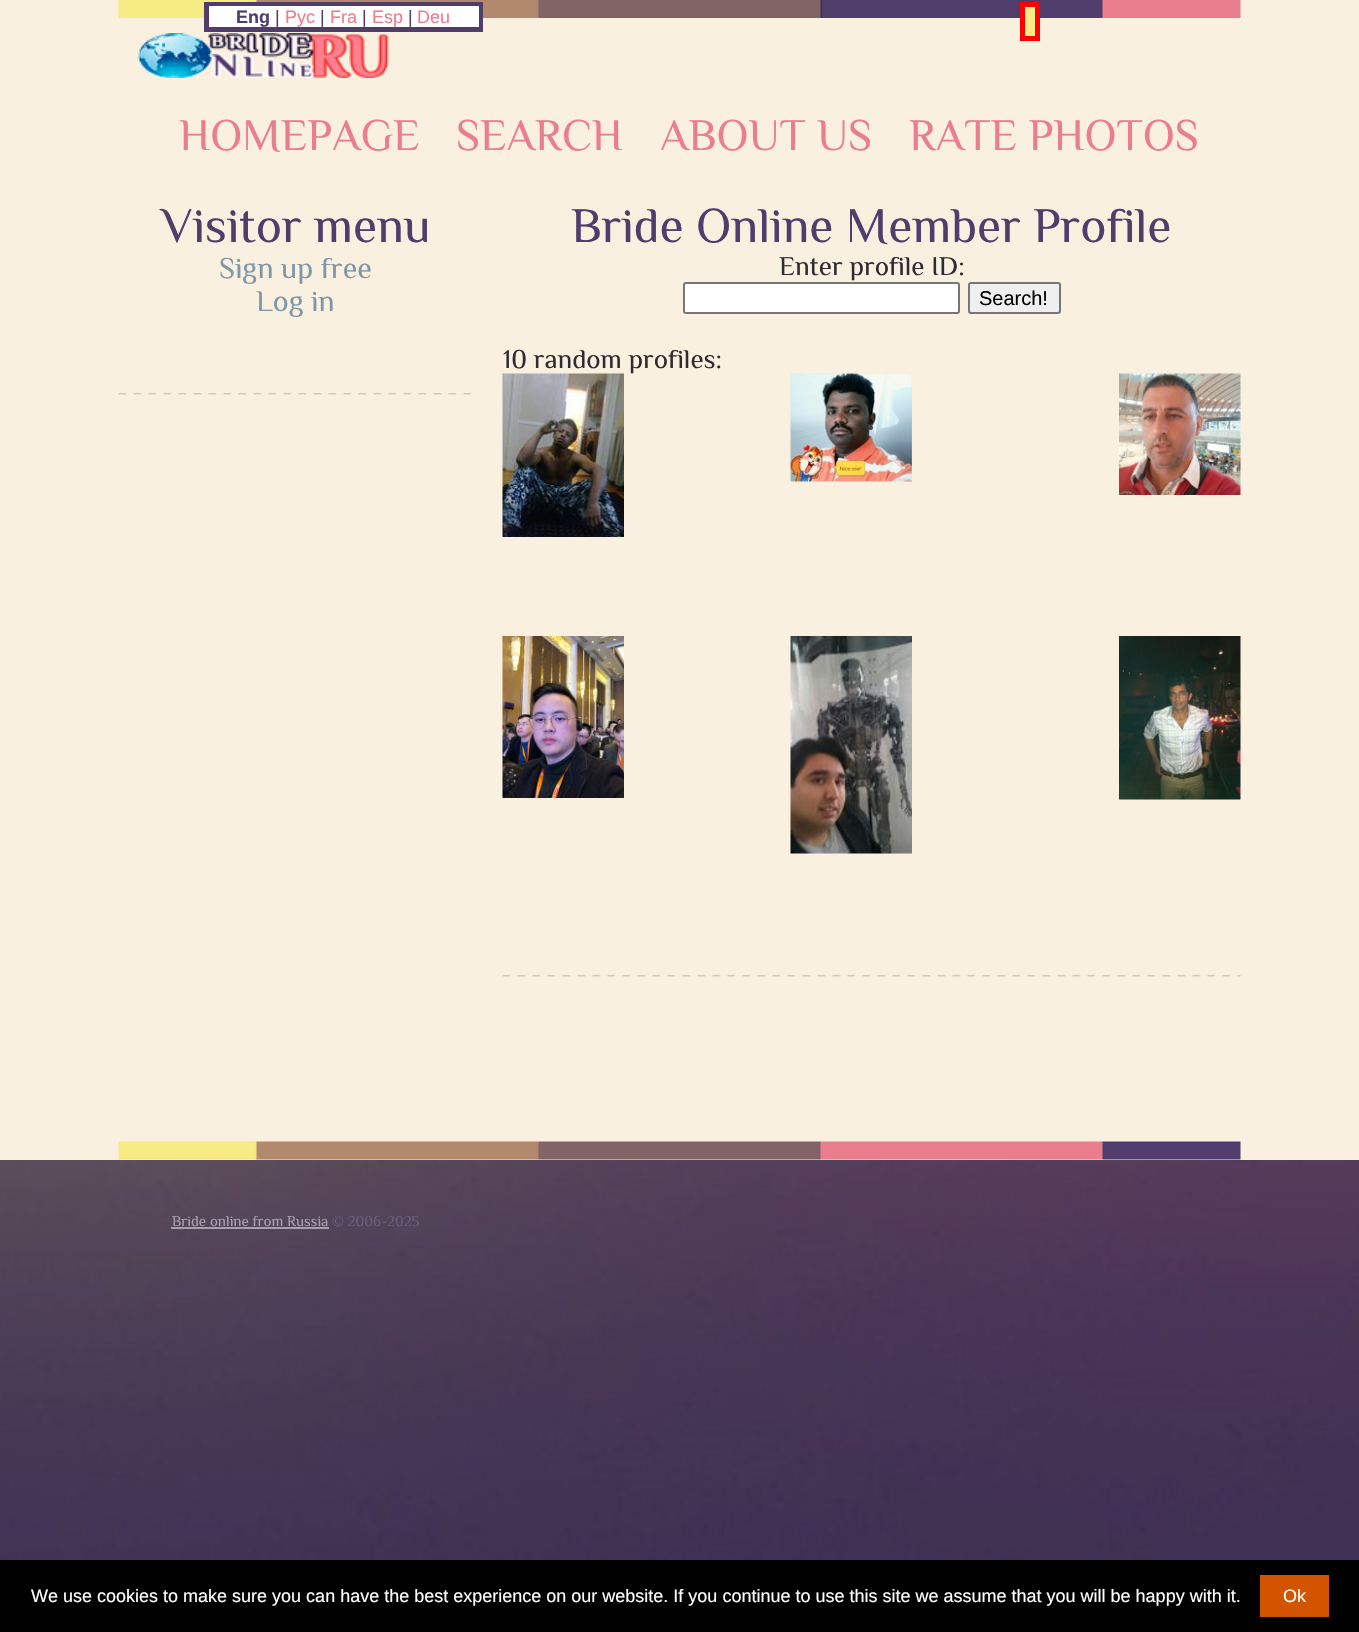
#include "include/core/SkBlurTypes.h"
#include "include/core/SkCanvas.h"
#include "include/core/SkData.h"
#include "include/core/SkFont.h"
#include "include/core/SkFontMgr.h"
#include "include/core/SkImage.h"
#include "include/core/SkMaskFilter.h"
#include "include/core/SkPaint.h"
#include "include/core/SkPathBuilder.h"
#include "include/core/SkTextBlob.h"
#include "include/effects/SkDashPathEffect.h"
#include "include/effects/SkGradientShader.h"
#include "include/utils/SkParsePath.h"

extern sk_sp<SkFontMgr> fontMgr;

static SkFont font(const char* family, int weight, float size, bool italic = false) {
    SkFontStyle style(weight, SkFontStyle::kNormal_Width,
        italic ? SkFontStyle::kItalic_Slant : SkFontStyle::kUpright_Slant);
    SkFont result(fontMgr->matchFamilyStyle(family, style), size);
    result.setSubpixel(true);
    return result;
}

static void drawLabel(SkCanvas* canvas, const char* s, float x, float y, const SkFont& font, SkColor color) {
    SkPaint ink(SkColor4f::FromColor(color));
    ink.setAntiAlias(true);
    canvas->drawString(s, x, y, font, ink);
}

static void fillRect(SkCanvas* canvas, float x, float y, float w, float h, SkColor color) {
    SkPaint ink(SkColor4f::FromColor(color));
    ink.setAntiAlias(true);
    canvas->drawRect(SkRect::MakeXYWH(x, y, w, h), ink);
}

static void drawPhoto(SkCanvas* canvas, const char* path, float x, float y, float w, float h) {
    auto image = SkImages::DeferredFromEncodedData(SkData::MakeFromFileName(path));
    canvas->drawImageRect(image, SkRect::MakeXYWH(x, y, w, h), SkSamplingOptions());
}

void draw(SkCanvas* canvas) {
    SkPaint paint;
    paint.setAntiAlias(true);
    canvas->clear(0xFFFFFFFF);
    drawPhoto(canvas, "assets/img1.png", 0, 1160, 1359, 400);
    fillRect(canvas, 0, 0, 1359, 1160, 0xFFF9F0DF);
    drawPhoto(canvas, "assets/img2.png", 118, 0, 1123, 18);
    paint.setStroke(true);
    paint.setStrokeWidth(5);
    paint.setColor(0xFF503D6B);
    canvas->drawRect(SkRect::MakeXYWH(206.5f, 4.5f, 274, 25), paint);
    fillRect(canvas, 209, 6, 270, 21, 0xFFFFFFFF);
    SkFont font1 = font("Liberation Sans", 700, 18);
    drawLabel(canvas, "Eng", 236, 23, font1, 0xFF503D6B);
    SkFont font2 = font("Liberation Sans", 400, 18);
    drawLabel(canvas, "|", 275, 23, font2, 0xFF503D6B);
    drawLabel(canvas, "Рус", 285, 23, font2, 0xFFEB7E8D);
    drawLabel(canvas, "|", 320, 23, font2, 0xFF503D6B);
    drawLabel(canvas, "Fra", 330, 23, font2, 0xFFEB7E8D);
    drawLabel(canvas, "|", 362, 23, font2, 0xFF503D6B);
    drawLabel(canvas, "Esp", 372, 23, font2, 0xFFEB7E8D);
    drawLabel(canvas, "|", 408, 23, font2, 0xFF503D6B);
    drawLabel(canvas, "Deu", 417, 23, font2, 0xFFEB7E8D);
    paint.setStroke(false);
    paint.setColor(0xFFF7EB83);
    canvas->drawRect(SkRect::MakeXYWH(1022.5f, 4.5f, 15, 34), paint);
    paint.setStroke(true);
    paint.setColor(0xFFFF0000);
    canvas->drawRect(SkRect::MakeXYWH(1022.5f, 4.5f, 15, 34), paint);
    drawPhoto(canvas, "assets/img3.png", 137, 33, 252, 45);
    SkFont font3 = font("Philosopher", 400, 45);
    drawLabel(canvas, "HOMEPAGE", 179, 150, font3, 0xFFEB7E8D);
    drawLabel(canvas, "SEARCH", 456, 150, font3, 0xFFEB7E8D);
    drawLabel(canvas, "ABOUT US", 660, 150, font3, 0xFFEB7E8D);
    drawLabel(canvas, "RATE PHOTOS", 909, 150, font3, 0xFFEB7E8D);
    SkFont font4 = font("Philosopher", 400, 49.5f);
    drawLabel(canvas, "Visitor menu", 161, 242, font4, 0xFF503D6B);
    SkFont font5 = font("Philosopher", 400, 30);
    drawLabel(canvas, "Sign up free", 219, 278, font5, 0xFF8097A8);
    drawLabel(canvas, "Log in", 256, 311, font5, 0xFF8097A8);
    drawPhoto(canvas, "assets/img4.png", 118, 393, 354, 2);
    drawPhoto(canvas, "assets/img5.png", 502, 975, 739, 2);
    drawLabel(canvas, "Bride Online Member Profile", 571, 242, font4, 0xFF503D6B);
    SkFont font6 = font("Philosopher", 400, 27);
    drawLabel(canvas, "Enter profile ID:", 779, 275, font6, 0xFF302B32);
    paint.setStroke(false);
    paint.setColor(0xFFFFFFFF);
    canvas->drawRoundRect(SkRect::MakeXYWH(684, 283, 275, 30), 2, 2, paint);
    paint.setStroke(true);
    paint.setStrokeWidth(2);
    paint.setColor(0xFF767676);
    canvas->drawRoundRect(SkRect::MakeXYWH(684, 283, 275, 30), 2, 2, paint);
    paint.setStroke(false);
    paint.setColor(0xFFEFEFEF);
    canvas->drawRoundRect(SkRect::MakeXYWH(969, 283, 91, 30), 2, 2, paint);
    paint.setStroke(true);
    paint.setColor(0xFF767676);
    canvas->drawRoundRect(SkRect::MakeXYWH(969, 283, 91, 30), 2, 2, paint);
    SkFont font7 = font("Liberation Sans", 400, 20);
    drawLabel(canvas, "Search!", 979, 305, font7, 0xFF000000);
    drawLabel(canvas, "10 random profiles:", 503, 368, font6, 0xFF302B32);
    drawPhoto(canvas, "assets/img6.png", 502, 373, 122, 164);
    drawPhoto(canvas, "assets/img7.png", 790, 373, 122, 109);
    drawPhoto(canvas, "assets/img8.png", 1119, 373, 122, 122);
    drawPhoto(canvas, "assets/img9.png", 502, 636, 122, 162);
    drawPhoto(canvas, "assets/img10.png", 790, 636, 122, 218);
    drawPhoto(canvas, "assets/img11.png", 1119, 636, 122, 164);
    drawPhoto(canvas, "assets/img12.png", 118, 1141, 1123, 19);
    SkFont font8 = font("Philosopher", 400, 15);
    drawLabel(canvas, "Bride online from Russia", 172, 1226, font8, 0xFFA5A0AC);
    fillRect(canvas, 171, 1227, 158, 2, 0xFFA5A0AC);
    drawLabel(canvas, "© 2006-2025", 332, 1226, font8, 0xFF685D7B);
    fillRect(canvas, 0, 1560, 1359, 72, 0xFF000000);
    drawLabel(canvas, "We use cookies to make sure you can have the best experience on our website. If you continue to use this site we assume that you will be happy with it.", 31, 1602, font2, 0xFFFFFFFF);
    fillRect(canvas, 1260, 1575, 69, 42, 0xFFD35400);
    drawLabel(canvas, "Ok", 1283, 1602, font2, 0xFFFFFFFF);
}
